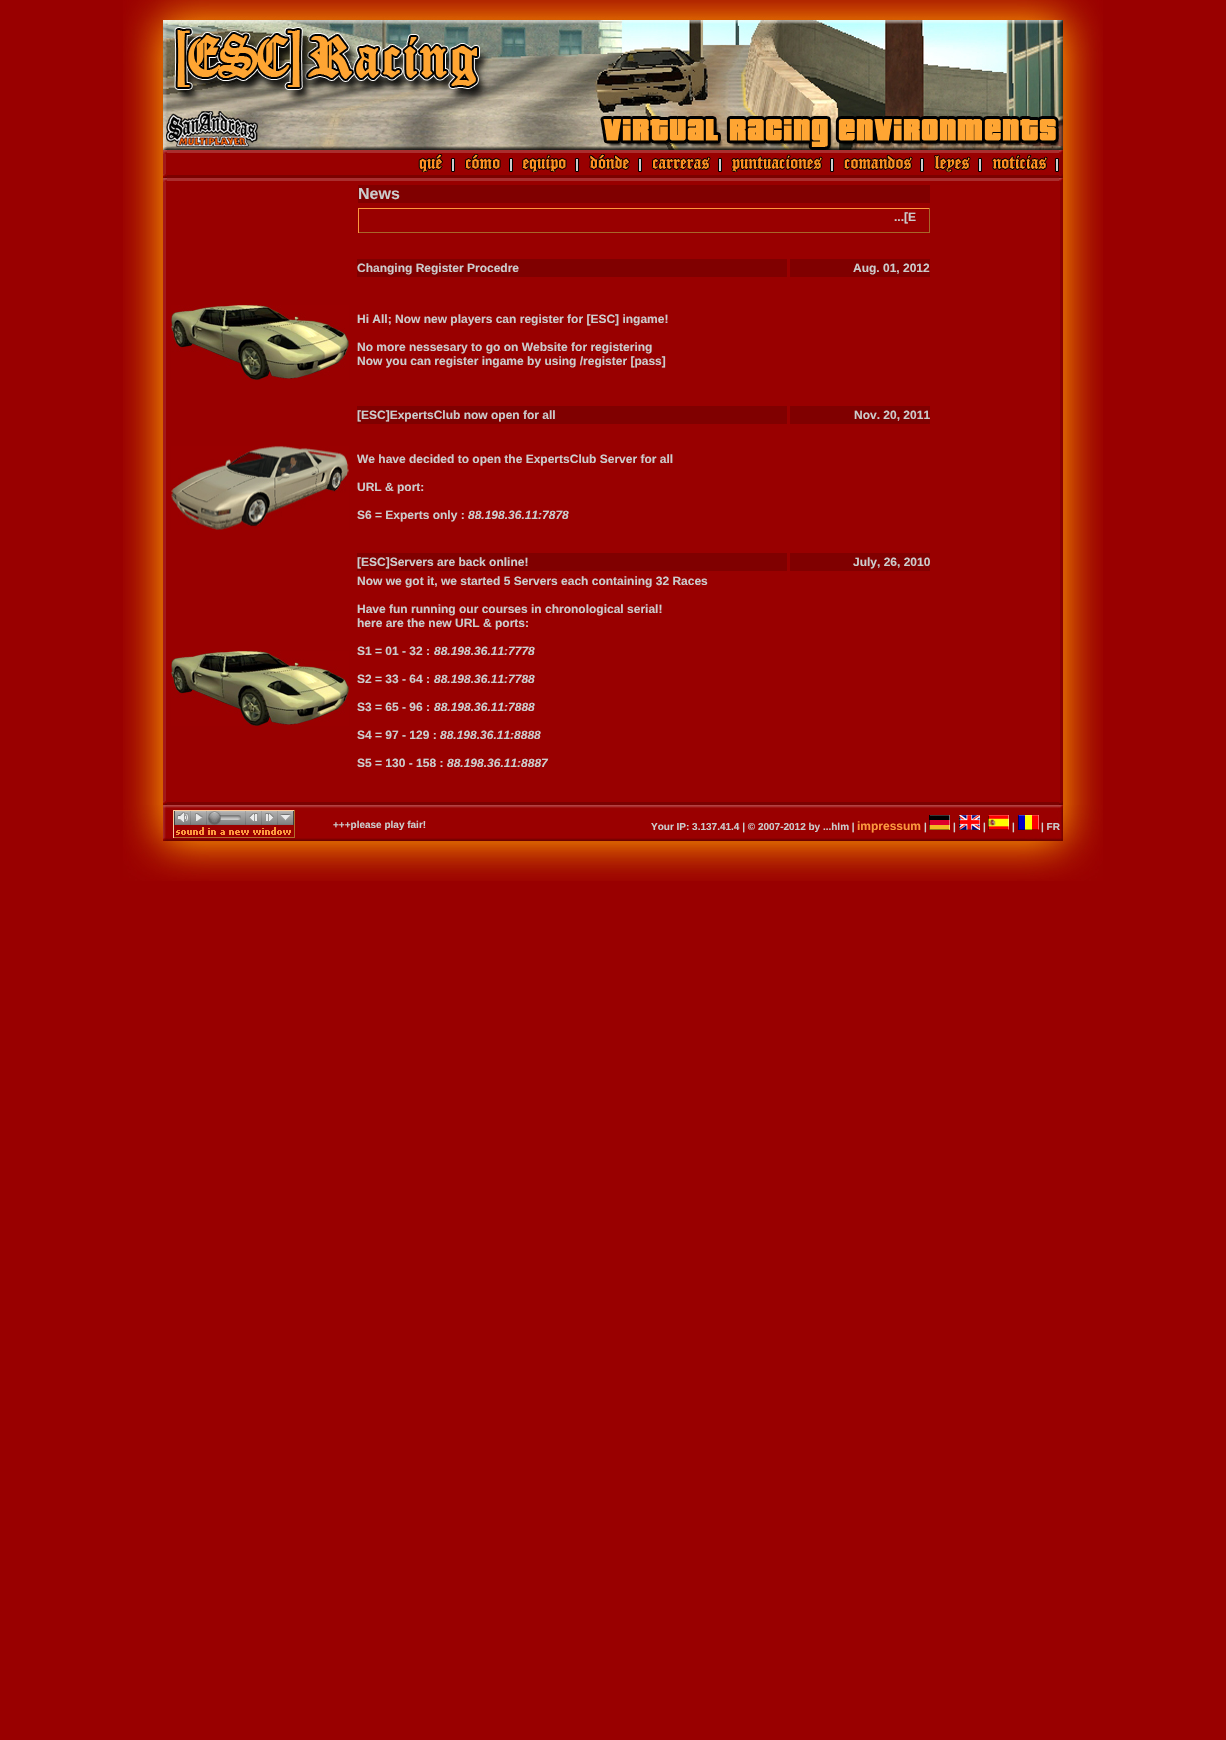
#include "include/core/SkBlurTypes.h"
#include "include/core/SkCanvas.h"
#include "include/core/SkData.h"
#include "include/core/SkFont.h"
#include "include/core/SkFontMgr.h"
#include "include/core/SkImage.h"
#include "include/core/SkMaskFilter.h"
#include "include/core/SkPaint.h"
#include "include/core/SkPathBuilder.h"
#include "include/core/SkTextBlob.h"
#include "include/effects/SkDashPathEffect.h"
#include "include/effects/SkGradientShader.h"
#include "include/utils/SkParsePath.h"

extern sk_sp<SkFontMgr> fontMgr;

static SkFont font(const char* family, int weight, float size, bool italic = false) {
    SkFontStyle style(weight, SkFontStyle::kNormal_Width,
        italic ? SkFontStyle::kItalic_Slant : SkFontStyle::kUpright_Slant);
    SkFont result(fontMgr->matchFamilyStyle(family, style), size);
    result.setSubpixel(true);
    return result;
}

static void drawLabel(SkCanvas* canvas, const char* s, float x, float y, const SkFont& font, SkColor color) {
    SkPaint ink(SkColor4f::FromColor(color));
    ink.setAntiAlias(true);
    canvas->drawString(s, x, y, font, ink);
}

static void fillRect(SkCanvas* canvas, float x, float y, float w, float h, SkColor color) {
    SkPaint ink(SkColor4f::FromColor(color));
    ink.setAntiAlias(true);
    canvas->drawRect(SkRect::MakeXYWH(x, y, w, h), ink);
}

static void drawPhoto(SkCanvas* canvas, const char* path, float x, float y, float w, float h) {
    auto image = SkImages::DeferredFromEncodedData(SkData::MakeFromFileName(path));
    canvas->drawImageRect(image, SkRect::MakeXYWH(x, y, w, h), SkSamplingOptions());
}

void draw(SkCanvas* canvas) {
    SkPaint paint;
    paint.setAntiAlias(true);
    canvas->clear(0xFF990000);
    drawPhoto(canvas, "assets/img1.png", 123, 0, 980, 150);
    drawPhoto(canvas, "assets/img2.png", 123, 150, 40, 4);
    drawPhoto(canvas, "assets/img3.png", 163, 150, 4, 4);
    fillRect(canvas, 167, 150, 892, 3, 0xFFAA2E2E);
    drawPhoto(canvas, "assets/img4.png", 1059, 150, 4, 4);
    drawPhoto(canvas, "assets/img5.png", 1063, 150, 40, 4);
    drawPhoto(canvas, "assets/img6.png", 123, 154, 40, 20);
    fillRect(canvas, 163, 154, 3, 20, 0xFFA31919);
    drawPhoto(canvas, "assets/img7.png", 418, 154, 37, 18);
    drawPhoto(canvas, "assets/img8.png", 464, 154, 49, 18);
    drawPhoto(canvas, "assets/img9.png", 521, 154, 58, 18);
    drawPhoto(canvas, "assets/img10.png", 589, 154, 53, 18);
    drawPhoto(canvas, "assets/img11.png", 651, 156, 71, 16);
    drawPhoto(canvas, "assets/img12.png", 731, 154, 103, 18);
    drawPhoto(canvas, "assets/img13.png", 843, 154, 81, 18);
    drawPhoto(canvas, "assets/img14.png", 934, 154, 48, 18);
    drawPhoto(canvas, "assets/img15.png", 991, 154, 68, 18);
    fillRect(canvas, 1060, 154, 3, 20, 0xFF860000);
    drawPhoto(canvas, "assets/img16.png", 1063, 154, 40, 20);
    drawPhoto(canvas, "assets/img2.png", 123, 174, 40, 4);
    drawPhoto(canvas, "assets/img17.png", 163, 174, 4, 4);
    fillRect(canvas, 167, 175, 892, 3, 0xFF7B0100);
    drawPhoto(canvas, "assets/img18.png", 1059, 174, 4, 4);
    drawPhoto(canvas, "assets/img5.png", 1063, 174, 40, 4);
    drawPhoto(canvas, "assets/img2.png", 123, 178, 40, 4);
    drawPhoto(canvas, "assets/img3.png", 163, 178, 4, 4);
    fillRect(canvas, 167, 178, 892, 3, 0xFFAA2E2E);
    drawPhoto(canvas, "assets/img4.png", 1059, 178, 4, 4);
    drawPhoto(canvas, "assets/img5.png", 1063, 178, 40, 4);
    drawPhoto(canvas, "assets/img19.png", 123, 182, 40, 619);
    fillRect(canvas, 163, 182, 3, 619, 0xFFA31919);
    fillRect(canvas, 358, 185, 572, 18, 0xFF800000);
    SkFont font1 = font("Liberation Sans", 700, 16);
    drawLabel(canvas, "News", 358, 199, font1, 0xFFCCCCCC);
    fillRect(canvas, 358, 208, 572, 1, 0xFFFC993E);
    fillRect(canvas, 929, 208, 1, 25, 0xFFA86629);
    fillRect(canvas, 358, 232, 572, 1, 0xFFA86629);
    fillRect(canvas, 358, 208, 1, 25, 0xFFFC993E);
    SkFont font2 = font("Liberation Sans", 700, 12);
    drawLabel(canvas, "...[E", 894, 221, font2, 0xFFCCCCCC);
    fillRect(canvas, 357, 259, 430, 18, 0xFF800000);
    drawLabel(canvas, "Changing Register Procedre", 357, 272, font2, 0xFFCCCCCC);
    fillRect(canvas, 790, 259, 140, 18, 0xFF800000);
    drawLabel(canvas, "Aug. 01, 2012", 853, 272, font2, 0xFFCCCCCC);
    drawPhoto(canvas, "assets/img20.png", 171, 305, 178, 75);
    drawLabel(canvas, "Hi All; Now new players can register for [ESC] ingame!", 357, 323, font2, 0xFFCCCCCC);
    drawLabel(canvas, "No more nessesary to go on Website for registering", 357, 351, font2, 0xFFCCCCCC);
    drawLabel(canvas, "Now you can register ingame by using /register [pass]", 357, 365, font2, 0xFFCCCCCC);
    fillRect(canvas, 357, 406, 430, 18, 0xFF800000);
    drawLabel(canvas, "[ESC]ExpertsClub now open for all", 357, 419, font2, 0xFFCCCCCC);
    fillRect(canvas, 790, 406, 140, 18, 0xFF800000);
    drawLabel(canvas, "Nov. 20, 2011", 854, 419, font2, 0xFFCCCCCC);
    drawPhoto(canvas, "assets/img21.png", 171, 446, 178, 84);
    drawLabel(canvas, "We have decided to open the ExpertsClub Server for all", 357, 463, font2, 0xFFCCCCCC);
    drawLabel(canvas, "URL & port:", 357, 491, font2, 0xFFCCCCCC);
    drawLabel(canvas, "S6 = Experts only :", 357, 519, font2, 0xFFCCCCCC);
    SkFont font3 = font("Liberation Sans", 700, 12, true);
    drawLabel(canvas, "88.198.36.11:7878", 468, 519, font3, 0xFFCCCCCC);
    fillRect(canvas, 357, 553, 430, 18, 0xFF800000);
    drawLabel(canvas, "[ESC]Servers are back online!", 357, 566, font2, 0xFFCCCCCC);
    fillRect(canvas, 790, 553, 140, 18, 0xFF800000);
    drawLabel(canvas, "July, 26, 2010", 853, 566, font2, 0xFFCCCCCC);
    drawPhoto(canvas, "assets/img20.png", 171, 651, 178, 75);
    drawLabel(canvas, "Now we got it, we started 5 Servers each containing 32 Races", 357, 585, font2, 0xFFCCCCCC);
    drawLabel(canvas, "Have fun running our courses in chronological serial!", 357, 613, font2, 0xFFCCCCCC);
    drawLabel(canvas, "here are the new URL & ports:", 357, 627, font2, 0xFFCCCCCC);
    drawLabel(canvas, "S1 = 01 - 32 :", 357, 655, font2, 0xFFCCCCCC);
    drawLabel(canvas, "88.198.36.11:7778", 434, 655, font3, 0xFFCCCCCC);
    drawLabel(canvas, "S2 = 33 - 64 :", 357, 683, font2, 0xFFCCCCCC);
    drawLabel(canvas, "88.198.36.11:7788", 434, 683, font3, 0xFFCCCCCC);
    drawLabel(canvas, "S3 = 65 - 96 :", 357, 711, font2, 0xFFCCCCCC);
    drawLabel(canvas, "88.198.36.11:7888", 434, 711, font3, 0xFFCCCCCC);
    drawLabel(canvas, "S4 = 97 - 129 :", 357, 739, font2, 0xFFCCCCCC);
    drawLabel(canvas, "88.198.36.11:8888", 440, 739, font3, 0xFFCCCCCC);
    drawLabel(canvas, "S5 = 130 - 158 :", 357, 767, font2, 0xFFCCCCCC);
    drawLabel(canvas, "88.198.36.11:8887", 447, 767, font3, 0xFFCCCCCC);
    fillRect(canvas, 1060, 182, 3, 619, 0xFF860000);
    drawPhoto(canvas, "assets/img22.png", 1063, 182, 40, 619);
    drawPhoto(canvas, "assets/img2.png", 123, 801, 40, 4);
    drawPhoto(canvas, "assets/img17.png", 163, 801, 4, 4);
    fillRect(canvas, 167, 802, 892, 3, 0xFF7B0100);
    drawPhoto(canvas, "assets/img18.png", 1059, 801, 4, 4);
    drawPhoto(canvas, "assets/img5.png", 1063, 801, 40, 4);
    drawPhoto(canvas, "assets/img23.png", 123, 805, 980, 76);
    drawPhoto(canvas, "assets/img24.png", 173, 810, 122, 28);
    SkFont font4 = font("Liberation Sans", 700, 10);
    drawLabel(canvas, "+++please play fair!", 333, 828, font4, 0xFFCCCCCC);
    drawLabel(canvas, "Your IP: 3.137.41.4 | © 2007-2012 by ...hlm |", 651, 830, font4, 0xFFCCCCCC);
    drawLabel(canvas, "impressum", 857, 830, font2, 0xFFFC993E);
    drawLabel(canvas, "|", 924, 830, font4, 0xFFCCCCCC);
    drawPhoto(canvas, "assets/img25.png", 929, 815, 21, 15);
    drawLabel(canvas, "|", 953, 830, font4, 0xFFCCCCCC);
    drawPhoto(canvas, "assets/img26.png", 959, 815, 21, 15);
    drawLabel(canvas, "|", 983, 830, font4, 0xFFCCCCCC);
    drawPhoto(canvas, "assets/img27.png", 988, 815, 21, 15);
    drawLabel(canvas, "|", 1012, 830, font4, 0xFFCCCCCC);
    drawPhoto(canvas, "assets/img28.png", 1018, 815, 21, 15);
    drawLabel(canvas, "| FR", 1041, 830, font4, 0xFFCCCCCC);
}
